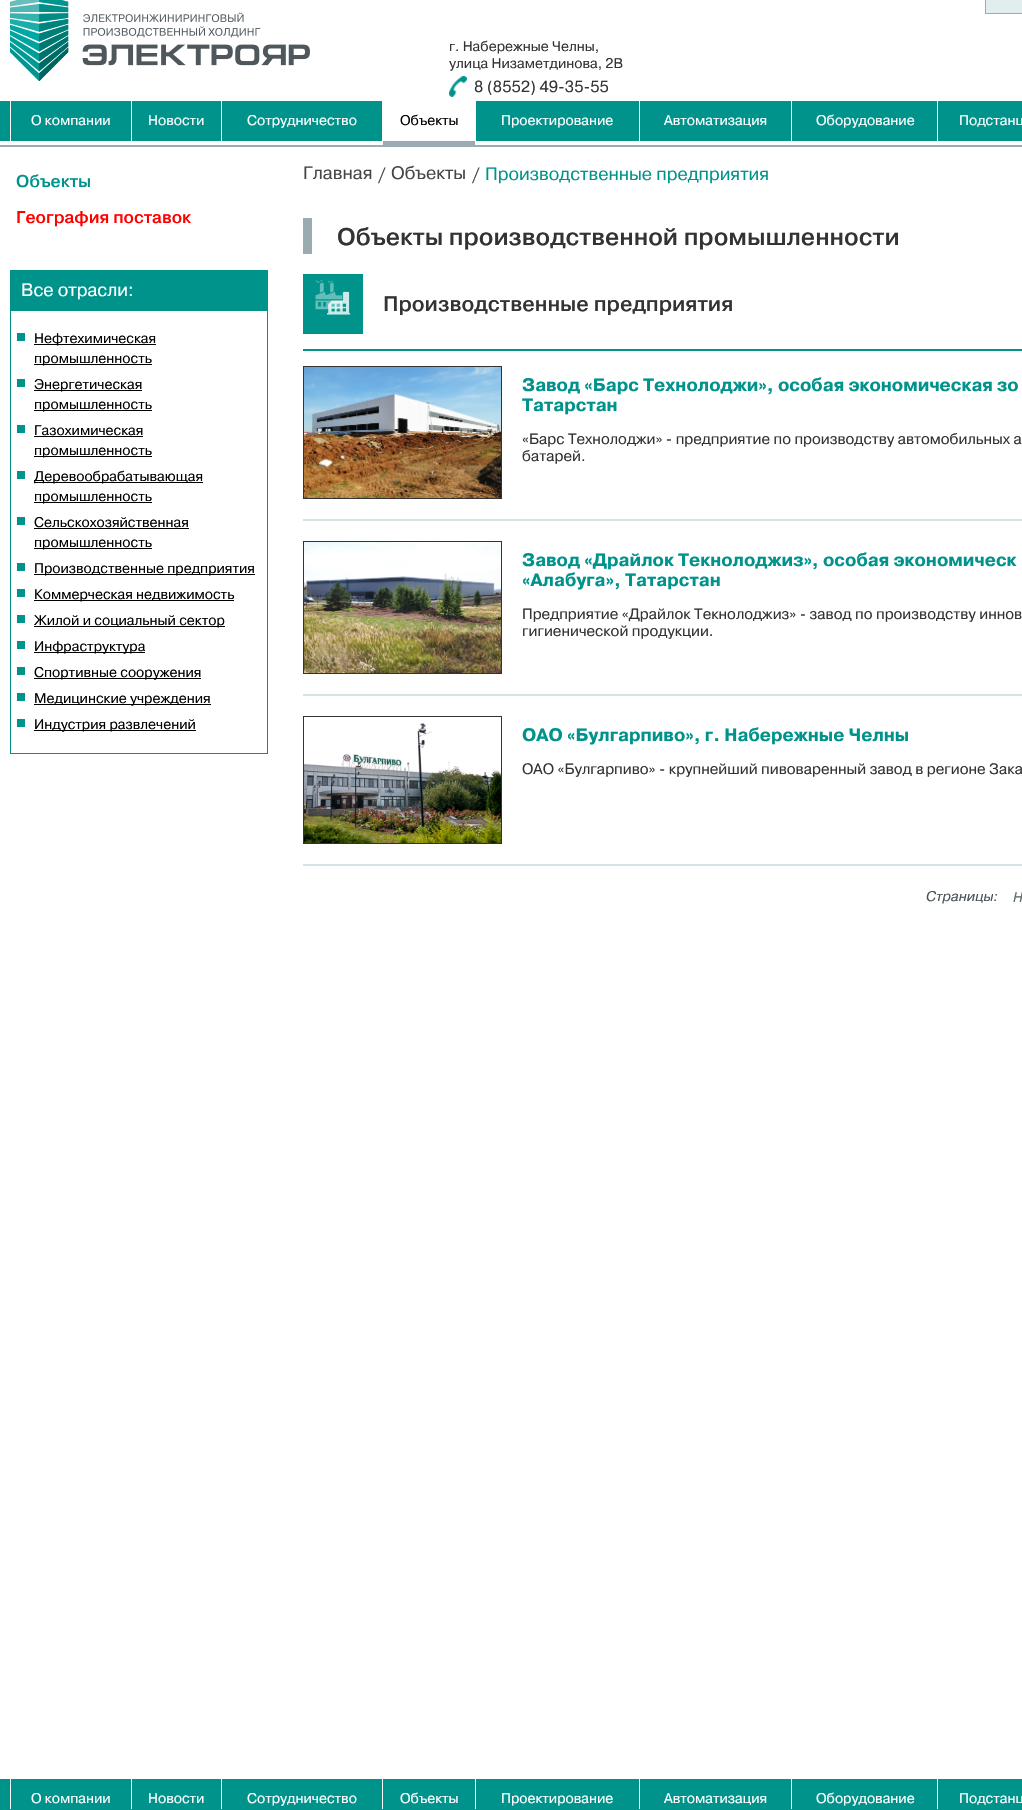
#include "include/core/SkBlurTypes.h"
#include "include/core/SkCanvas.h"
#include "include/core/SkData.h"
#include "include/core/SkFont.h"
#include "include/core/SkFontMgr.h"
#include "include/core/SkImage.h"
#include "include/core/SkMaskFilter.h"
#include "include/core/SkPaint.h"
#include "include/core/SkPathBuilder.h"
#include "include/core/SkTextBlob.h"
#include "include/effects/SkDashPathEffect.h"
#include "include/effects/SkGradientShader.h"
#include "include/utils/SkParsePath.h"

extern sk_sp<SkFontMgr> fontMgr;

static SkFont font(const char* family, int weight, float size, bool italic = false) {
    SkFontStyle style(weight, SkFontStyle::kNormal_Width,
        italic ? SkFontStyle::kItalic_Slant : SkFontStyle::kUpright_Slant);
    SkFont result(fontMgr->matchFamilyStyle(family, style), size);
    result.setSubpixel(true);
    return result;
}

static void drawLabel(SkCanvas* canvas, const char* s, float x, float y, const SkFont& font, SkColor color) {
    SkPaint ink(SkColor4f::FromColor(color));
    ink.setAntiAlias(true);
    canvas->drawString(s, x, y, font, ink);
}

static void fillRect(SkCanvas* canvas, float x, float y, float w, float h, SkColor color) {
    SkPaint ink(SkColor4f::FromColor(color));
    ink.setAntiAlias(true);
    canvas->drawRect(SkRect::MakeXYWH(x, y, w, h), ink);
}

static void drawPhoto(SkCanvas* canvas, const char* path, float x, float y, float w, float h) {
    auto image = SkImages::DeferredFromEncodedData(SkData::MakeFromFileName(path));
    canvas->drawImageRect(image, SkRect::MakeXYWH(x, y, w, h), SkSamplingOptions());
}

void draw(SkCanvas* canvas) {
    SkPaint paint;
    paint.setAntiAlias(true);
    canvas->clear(0xFFFFFFFF);
    paint.setColor(0xFFE2EDEE);
    canvas->drawRect(SkRect::MakeXYWH(985.5f, -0.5f, 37, 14), paint);
    paint.setStroke(true);
    paint.setStrokeWidth(1);
    paint.setColor(0xFF9AACB1);
    canvas->drawRect(SkRect::MakeXYWH(985.5f, -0.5f, 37, 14), paint);
    drawPhoto(canvas, "assets/img1.png", 10, 0, 300, 81);
    SkFont font1 = font("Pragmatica", 400, 14);
    drawLabel(canvas, "г. Набережные Челны,", 449, 51, font1, 0xFF333333);
    drawLabel(canvas, "улица Низаметдинова, 2В", 449, 68, font1, 0xFF333333);
    drawPhoto(canvas, "assets/img2.png", 449, 76, 18, 21);
    SkFont font2 = font("Pragmatica", 400, 16);
    drawLabel(canvas, "8 (8552) 49-35-55", 474, 92, font2, 0xFF333333);
    fillRect(canvas, 0, 101, 1022, 40, 0xFF00938C);
    fillRect(canvas, 131, 101, 1, 40, 0xFFFFFFFF);
    fillRect(canvas, 10, 101, 1, 40, 0xFFFFFFFF);
    drawLabel(canvas, "О компании", 31, 125, font1, 0xFFFFFFFF);
    fillRect(canvas, 221, 101, 1, 40, 0xFFFFFFFF);
    drawLabel(canvas, "Новости", 148, 125, font1, 0xFFFFFFFF);
    fillRect(canvas, 382, 101, 1, 40, 0xFFFFFFFF);
    drawLabel(canvas, "Сотрудничество", 247, 125, font1, 0xFFFFFFFF);
    fillRect(canvas, 383, 101, 93, 40, 0xFFFFFFFF);
    drawLabel(canvas, "Объекты", 400, 125, font1, 0xFF000000);
    fillRect(canvas, 383, 141, 92, 4, 0xFF9AACB1);
    fillRect(canvas, 639, 101, 1, 40, 0xFFFFFFFF);
    drawLabel(canvas, "Проектирование", 501, 125, font1, 0xFFFFFFFF);
    fillRect(canvas, 791, 101, 1, 40, 0xFFFFFFFF);
    drawLabel(canvas, "Автоматизация", 664, 125, font1, 0xFFFFFFFF);
    fillRect(canvas, 937, 101, 1, 40, 0xFFFFFFFF);
    drawLabel(canvas, "Оборудование", 816, 125, font1, 0xFFFFFFFF);
    drawLabel(canvas, "Подстанц", 959, 125, font1, 0xFFFFFFFF);
    fillRect(canvas, 0, 145, 1022, 2, 0xFF9AACB1);
    SkFont font3 = font("Pragmatica", 500, 17);
    drawLabel(canvas, "Объекты", 16, 187, font3, 0xFF00938C);
    drawLabel(canvas, "География поставок", 16, 223, font3, 0xFFFF0000);
    paint.setColor(0xFF00938C);
    canvas->drawRect(SkRect::MakeXYWH(10.5f, 270.5f, 257, 483), paint);
    fillRect(canvas, 11, 271, 256, 40, 0xFF00938C);
    SkFont font4 = font("Pragmatica", 400, 18);
    drawLabel(canvas, "Все отрасли:", 21, 296, font4, 0xFFFFFFFF);
    fillRect(canvas, 17, 333, 8, 8, 0xFF00938C);
    fillRect(canvas, 34, 344, 122, 1, 0xFF000000);
    drawLabel(canvas, "Нефтехимическая", 34, 343, font1, 0xFF000000);
    fillRect(canvas, 34, 364, 118, 1, 0xFF000000);
    drawLabel(canvas, "промышленность", 34, 363, font1, 0xFF000000);
    fillRect(canvas, 17, 379, 8, 8, 0xFF00938C);
    fillRect(canvas, 34, 390, 108, 1, 0xFF000000);
    drawLabel(canvas, "Энергетическая", 34, 389, font1, 0xFF000000);
    fillRect(canvas, 34, 410, 118, 1, 0xFF000000);
    drawLabel(canvas, "промышленность", 34, 409, font1, 0xFF000000);
    fillRect(canvas, 17, 425, 8, 8, 0xFF00938C);
    drawLabel(canvas, "Газохимическая", 34, 435, font1, 0xFF000000);
    fillRect(canvas, 34, 436, 109, 1, 0xFF000000);
    fillRect(canvas, 34, 456, 118, 1, 0xFF000000);
    drawLabel(canvas, "промышленность", 34, 455, font1, 0xFF000000);
    fillRect(canvas, 17, 471, 8, 8, 0xFF00938C);
    fillRect(canvas, 34, 482, 169, 1, 0xFF000000);
    drawLabel(canvas, "Деревообрабатывающая", 34, 481, font1, 0xFF000000);
    fillRect(canvas, 34, 502, 118, 1, 0xFF000000);
    drawLabel(canvas, "промышленность", 34, 501, font1, 0xFF000000);
    fillRect(canvas, 17, 517, 8, 8, 0xFF00938C);
    drawLabel(canvas, "Сельскохозяйственная", 34, 527, font1, 0xFF000000);
    fillRect(canvas, 34, 528, 155, 1, 0xFF000000);
    fillRect(canvas, 34, 548, 118, 1, 0xFF000000);
    drawLabel(canvas, "промышленность", 34, 547, font1, 0xFF000000);
    fillRect(canvas, 17, 563, 8, 8, 0xFF00938C);
    fillRect(canvas, 34, 574, 221, 1, 0xFF000000);
    drawLabel(canvas, "Производственные предприятия", 34, 573, font1, 0xFF000000);
    fillRect(canvas, 17, 589, 8, 8, 0xFF00938C);
    fillRect(canvas, 34, 600, 200, 1, 0xFF000000);
    drawLabel(canvas, "Коммерческая недвижимость", 34, 599, font1, 0xFF000000);
    fillRect(canvas, 17, 615, 8, 8, 0xFF00938C);
    fillRect(canvas, 34, 626, 191, 1, 0xFF000000);
    drawLabel(canvas, "Жилой и социальный сектор", 34, 625, font1, 0xFF000000);
    fillRect(canvas, 17, 641, 8, 8, 0xFF00938C);
    fillRect(canvas, 34, 652, 111, 1, 0xFF000000);
    drawLabel(canvas, "Инфраструктура", 34, 651, font1, 0xFF000000);
    fillRect(canvas, 17, 667, 8, 8, 0xFF00938C);
    fillRect(canvas, 34, 678, 167, 1, 0xFF000000);
    drawLabel(canvas, "Спортивные сооружения", 34, 677, font1, 0xFF000000);
    fillRect(canvas, 17, 693, 8, 8, 0xFF00938C);
    fillRect(canvas, 34, 704, 177, 1, 0xFF000000);
    drawLabel(canvas, "Медицинские учреждения", 34, 703, font1, 0xFF000000);
    fillRect(canvas, 17, 719, 8, 8, 0xFF00938C);
    fillRect(canvas, 34, 730, 162, 1, 0xFF000000);
    drawLabel(canvas, "Индустрия развлечений", 34, 729, font1, 0xFF000000);
    drawLabel(canvas, "Главная", 303, 179, font4, 0xFF464646);
    drawLabel(canvas, "/", 378, 180, font4, 0xFF464646);
    drawLabel(canvas, "Объекты", 391, 179, font4, 0xFF464646);
    drawLabel(canvas, "/", 472, 180, font4, 0xFF464646);
    drawLabel(canvas, "Производственные предприятия", 485, 180, font4, 0xFF00938C);
    fillRect(canvas, 303, 218, 9, 36, 0xFF9AACB1);
    SkFont font5 = font("Pragmatica", 500, 24);
    drawLabel(canvas, "Объекты производственной промышленности", 337, 245, font5, 0xFF333333);
    fillRect(canvas, 303, 274, 60, 60, 0xFF00938C);
    drawPhoto(canvas, "assets/img3.png", 315, 280, 36, 35);
    SkFont font6 = font("Pragmatica", 500, 21);
    drawLabel(canvas, "Производственные предприятия", 383, 311, font6, 0xFF333333);
    fillRect(canvas, 303, 349, 719, 2, 0xFF00938C);
    paint.setColor(0xFF333333);
    canvas->drawRect(SkRect::MakeXYWH(303.5f, 366.5f, 198, 132), paint);
    drawPhoto(canvas, "assets/img4.png", 304, 367, 197, 131);
    SkFont font7 = font("Pragmatica", 700, 18);
    drawLabel(canvas, "Завод «Барс Технолоджи», особая экономическая зо", 522, 391, font7, 0xFF00938C);
    drawLabel(canvas, "Татарстан", 522, 411, font7, 0xFF00938C);
    SkFont font8 = font("Pragmatica", 400, 15);
    drawLabel(canvas, "«Барс Технолоджи» - предприятие по производству автомобильных а", 522, 444, font8, 0xFF333333);
    drawLabel(canvas, "батарей.", 522, 461, font8, 0xFF333333);
    fillRect(canvas, 303, 519, 719, 2, 0xFFD7E2E6);
    canvas->drawRect(SkRect::MakeXYWH(303.5f, 541.5f, 198, 132), paint);
    drawPhoto(canvas, "assets/img5.png", 304, 542, 197, 131);
    drawLabel(canvas, "Завод «Драйлок Текнолоджиз», особая экономическ", 522, 566, font7, 0xFF00938C);
    drawLabel(canvas, "«Алабуга», Татарстан", 522, 586, font7, 0xFF00938C);
    drawLabel(canvas, "Предприятие «Драйлок Текнолоджиз» - завод по производству иннов", 522, 619, font8, 0xFF333333);
    drawLabel(canvas, "гигиенической продукции.", 522, 636, font8, 0xFF333333);
    fillRect(canvas, 303, 694, 719, 2, 0xFFD7E2E6);
    canvas->drawRect(SkRect::MakeXYWH(303.5f, 716.5f, 198, 127), paint);
    drawPhoto(canvas, "assets/img6.png", 304, 722, 197, 121);
    drawLabel(canvas, "ОАО «Булгарпиво», г. Набережные Челны", 522, 741, font7, 0xFF00938C);
    drawLabel(canvas, "ОАО «Булгарпиво» - крупнейший пивоваренный завод в регионе Зака", 522, 774, font8, 0xFF333333);
    fillRect(canvas, 303, 864, 719, 2, 0xFFD7E2E6);
    SkFont font9 = font("Pragmatica", 400, 14, true);
    drawLabel(canvas, "Страницы:", 926, 901, font9, 0xFF495357);
    drawLabel(canvas, "Н", 1013, 902, font9, 0xFF616A6D);
    fillRect(canvas, 0, 1779, 1022, 31, 0xFF00938C);
    fillRect(canvas, 131, 1779, 1, 30, 0xFFFFFFFF);
    fillRect(canvas, 10, 1779, 1, 30, 0xFFFFFFFF);
    drawLabel(canvas, "О компании", 31, 1803, font1, 0xFFFFFFFF);
    fillRect(canvas, 221, 1779, 1, 30, 0xFFFFFFFF);
    drawLabel(canvas, "Новости", 148, 1803, font1, 0xFFFFFFFF);
    fillRect(canvas, 382, 1779, 1, 30, 0xFFFFFFFF);
    drawLabel(canvas, "Сотрудничество", 247, 1803, font1, 0xFFFFFFFF);
    fillRect(canvas, 475, 1779, 1, 30, 0xFFFFFFFF);
    drawLabel(canvas, "Объекты", 400, 1803, font1, 0xFFFFFFFF);
    fillRect(canvas, 639, 1779, 1, 30, 0xFFFFFFFF);
    drawLabel(canvas, "Проектирование", 501, 1803, font1, 0xFFFFFFFF);
    fillRect(canvas, 791, 1779, 1, 30, 0xFFFFFFFF);
    drawLabel(canvas, "Автоматизация", 664, 1803, font1, 0xFFFFFFFF);
    fillRect(canvas, 937, 1779, 1, 30, 0xFFFFFFFF);
    drawLabel(canvas, "Оборудование", 816, 1803, font1, 0xFFFFFFFF);
    drawLabel(canvas, "Подстанц", 959, 1803, font1, 0xFFFFFFFF);
}
